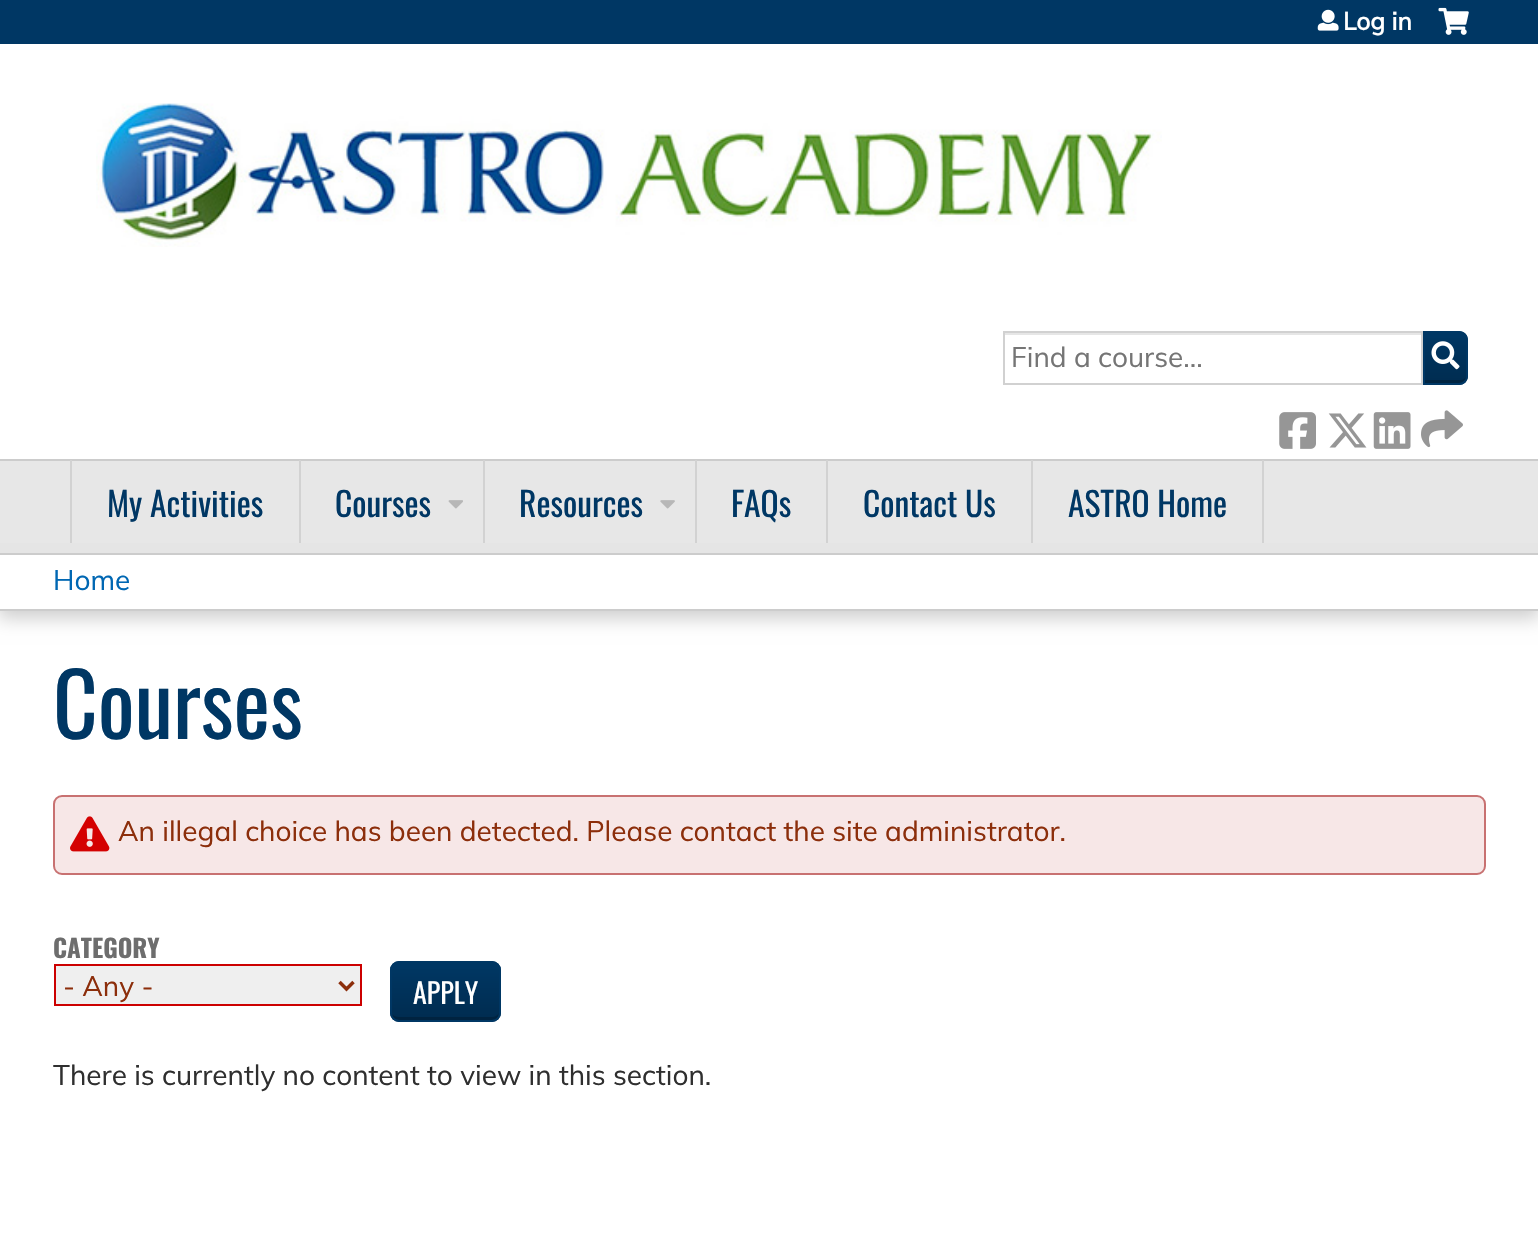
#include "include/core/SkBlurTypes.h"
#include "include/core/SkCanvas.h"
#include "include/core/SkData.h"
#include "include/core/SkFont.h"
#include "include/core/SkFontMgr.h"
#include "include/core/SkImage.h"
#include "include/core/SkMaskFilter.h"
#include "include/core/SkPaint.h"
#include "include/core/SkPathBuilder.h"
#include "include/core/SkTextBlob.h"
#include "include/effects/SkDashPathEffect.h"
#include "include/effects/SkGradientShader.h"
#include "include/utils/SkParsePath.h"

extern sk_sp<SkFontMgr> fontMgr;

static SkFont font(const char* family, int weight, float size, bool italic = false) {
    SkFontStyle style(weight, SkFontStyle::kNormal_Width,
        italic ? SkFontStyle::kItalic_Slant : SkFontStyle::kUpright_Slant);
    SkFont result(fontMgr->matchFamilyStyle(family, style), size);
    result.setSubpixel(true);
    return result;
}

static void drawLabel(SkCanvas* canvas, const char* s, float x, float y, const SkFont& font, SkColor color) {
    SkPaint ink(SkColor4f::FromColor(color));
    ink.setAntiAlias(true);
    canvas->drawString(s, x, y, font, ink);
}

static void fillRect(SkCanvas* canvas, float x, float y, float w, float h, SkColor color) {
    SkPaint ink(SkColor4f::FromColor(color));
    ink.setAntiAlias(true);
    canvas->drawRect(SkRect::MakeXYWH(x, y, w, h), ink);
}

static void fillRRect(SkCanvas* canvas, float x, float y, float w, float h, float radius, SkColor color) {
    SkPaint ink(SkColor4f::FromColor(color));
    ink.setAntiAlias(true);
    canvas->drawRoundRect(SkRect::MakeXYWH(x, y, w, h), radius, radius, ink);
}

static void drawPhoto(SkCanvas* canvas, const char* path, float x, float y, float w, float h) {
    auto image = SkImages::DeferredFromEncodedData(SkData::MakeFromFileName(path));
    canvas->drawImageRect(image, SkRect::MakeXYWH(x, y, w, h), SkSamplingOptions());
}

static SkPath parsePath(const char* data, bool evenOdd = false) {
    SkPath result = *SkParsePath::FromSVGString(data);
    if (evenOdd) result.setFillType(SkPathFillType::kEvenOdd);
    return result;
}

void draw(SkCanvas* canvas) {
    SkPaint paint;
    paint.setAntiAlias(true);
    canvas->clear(0xFFFFFFFF);
    fillRect(canvas, 0, 0, 1538, 44, 0xFF003764);
    drawPhoto(canvas, "assets/img1.png", 96, 103, 1066, 144);
    drawPhoto(canvas, "assets/img2.png", 1317, 9, 22, 22);
    SkFont font1 = font("Muli", 700, 24.5f);
    drawLabel(canvas, "Log in", 1343, 30, font1, 0xFFFFFFFF);
    drawPhoto(canvas, "assets/img3.png", 1438, 7, 31, 28);
    paint.setColor(0xFF003764);
    canvas->drawPath(parsePath("M1423 331H1459C1464 331 1468 335 1468 340V376C1468 381 1464 385 1459 385H1423Z"), paint);
    canvas->save();
    canvas->clipPath(parsePath("M1423 331H1459C1464 331 1468 335 1468 340V376C1468 381 1464 385 1459 385H1423Z"), true);
    {
        const SkColor colors[] = {0x33000000, 0x00000000};
        const float stops[] = {0, 1};
        const SkPoint ends[] = {{1446, 383}, {1446, 333}};
        paint.setShader(SkGradientShader::MakeLinear(ends, colors, stops, 2, SkTileMode::kClamp));
        paint.setAlpha(255);
    }
    canvas->drawRect(SkRect::MakeXYWH(1425, 338, 43, 45), paint);
    canvas->restore();
    paint.setShader(nullptr);
    paint.setColor(0xFF002441);
    canvas->drawPath(parsePath("M1425 380V383H1448C1455 383 1467 386 1467 375C1466 378 1463 380 1460 380Z"), paint);
    paint.setStroke(true);
    paint.setStrokeWidth(2);
    paint.setColor(0xFF003764);
    canvas->drawPath(parsePath("M1424 332H1459C1463.5 332 1467 335.5 1467 340V376C1467 380.5 1463.5 384 1459 384H1424Z"), paint);
    fillRect(canvas, 1005, 333, 416, 2, 0xFFE6E6E6);
    paint.setColor(0xFFD1D1D1);
    canvas->drawRect(SkRect::MakeXYWH(1004, 332, 418, 52), paint);
    SkFont font2 = font("Muli", 400, 28);
    drawLabel(canvas, "Find a course...", 1011, 367, font2, 0xFF757575);
    drawPhoto(canvas, "assets/img4.png", 1431, 341, 29, 29);
    drawPhoto(canvas, "assets/img5.png", 1279, 412, 37, 37);
    drawPhoto(canvas, "assets/img6.png", 1328, 413, 39, 35);
    drawPhoto(canvas, "assets/img7.png", 1373, 412, 38, 37);
    drawPhoto(canvas, "assets/img8.png", 1421, 410, 42, 38);
    paint.setStroke(false);
    paint.setColor(0x33000000);
    paint.setMaskFilter(SkMaskFilter::MakeBlur(kNormal_SkBlurStyle, 9));
    canvas->drawRect(SkRect::MakeXYWH(-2, 557, 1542, 61), paint);
    paint.setMaskFilter(nullptr);
    fillRect(canvas, 0, 461, 1538, 82, 0xFFE7E7E7);
    fillRect(canvas, 0, 459, 1538, 2, 0xFFCCCCCC);
    fillRect(canvas, 0, 543, 1538, 10, 0xFFE5E5E5);
    fillRect(canvas, 299, 460, 2, 83, 0xFFD2D2D2);
    fillRect(canvas, 70, 460, 2, 83, 0xFFD2D2D2);
    SkFont font3 = font("Oswald", 400, 33.5f);
    drawLabel(canvas, "My Activities", 107, 517, font3, 0xFF003764);
    fillRect(canvas, 483, 460, 2, 83, 0xFFD2D2D2);
    drawLabel(canvas, "Courses", 335, 517, font3, 0xFF003764);
    drawPhoto(canvas, "assets/img9.png", 448, 500, 15, 9);
    fillRect(canvas, 695, 460, 2, 83, 0xFFD2D2D2);
    drawLabel(canvas, "Resources", 519, 517, font3, 0xFF003764);
    drawPhoto(canvas, "assets/img10.png", 660, 500, 15, 9);
    fillRect(canvas, 826, 460, 2, 83, 0xFFD2D2D2);
    drawLabel(canvas, "FAQs", 731, 517, font3, 0xFF003764);
    fillRect(canvas, 1031, 460, 2, 83, 0xFFD2D2D2);
    drawLabel(canvas, "Contact Us", 863, 517, font3, 0xFF003764);
    fillRect(canvas, 1262, 460, 2, 83, 0xFFD2D2D2);
    drawLabel(canvas, "ASTRO Home", 1068, 517, font3, 0xFF003764);
    fillRect(canvas, 0, 555, 1538, 54, 0xFFFFFFFF);
    fillRect(canvas, 0, 553, 1538, 2, 0xFFCCCCCC);
    fillRect(canvas, 0, 609, 1538, 2, 0xFFCCCCCC);
    drawLabel(canvas, "Home", 53, 590, font2, 0xFF0067B3);
    SkFont font4 = font("Oswald", 400, 87);
    drawLabel(canvas, "Courses", 53, 739, font4, 0xFF003764);
    paint.setColor(0xFFF7E7E7);
    canvas->drawRoundRect(SkRect::MakeXYWH(54, 796, 1431, 78), 8, 8, paint);
    paint.setStroke(true);
    paint.setColor(0xFFC87171);
    canvas->drawRoundRect(SkRect::MakeXYWH(54, 796, 1431, 78), 8, 8, paint);
    drawPhoto(canvas, "assets/img11.png", 70, 816, 40, 36);
    drawLabel(canvas, "An illegal choice has been detected. Please contact the site administrator.", 118, 841, font2, 0xFF8C2E0B);
    SkFont font5 = font("Oswald", 700, 25);
    drawLabel(canvas, "CATEGORY", 53, 958, font5, 0xFF6D6D6D);
    paint.setStroke(false);
    paint.setColor(0xFFEFEFEF);
    canvas->drawRect(SkRect::MakeXYWH(55, 965, 306, 40), paint);
    paint.setStroke(true);
    paint.setColor(0xFFCC0000);
    canvas->drawRect(SkRect::MakeXYWH(55, 965, 306, 40), paint);
    paint.setStrokeWidth(3.5f);
    paint.setColor(0xFF8C2E0B);
    canvas->drawPath(parsePath("M339.5 982L346.5 989L353.5 982"), paint);
    drawLabel(canvas, "- Any -", 63, 996, font2, 0xFF8C2E0B);
    fillRRect(canvas, 390, 961, 111, 61, 9, 0xFF003764);
    canvas->save();
    canvas->clipPath(parsePath("M399 961H492C497 961 501 965 501 970V1013C501 1018 497 1022 492 1022H399C394 1022 390 1018 390 1013V970C390 965 394 961 399 961Z"), true);
    paint.setStroke(false);
    {
        const SkColor colors[] = {0x33000000, 0x00000000};
        const float stops[] = {0, 1};
        const SkPoint ends[] = {{445, 1020}, {445, 963}};
        paint.setShader(SkGradientShader::MakeLinear(ends, colors, stops, 2, SkTileMode::kClamp));
        paint.setAlpha(255);
    }
    canvas->drawRect(SkRect::MakeXYWH(390, 969, 111, 51), paint);
    canvas->restore();
    paint.setShader(nullptr);
    paint.setColor(0xFF002340);
    canvas->drawPath(parsePath("M392 1014C392 1017 395 1020 399 1020H492C496 1020 499 1017 499 1013C498 1015 495 1017 492 1017H399C396 1017 394 1016 392 1014Z"), paint);
    paint.setStroke(true);
    paint.setStrokeWidth(2);
    paint.setColor(0xFF003764);
    canvas->drawRoundRect(SkRect::MakeXYWH(391, 962, 109, 59), 8, 8, paint);
    SkFont font6 = font("Oswald", 400, 28);
    drawLabel(canvas, "APPLY", 413, 1004, font6, 0xFFFFFFFF);
    drawLabel(canvas, "There is currently no content to view in this section.", 53, 1085, font2, 0xFF2F2F2F);
}
